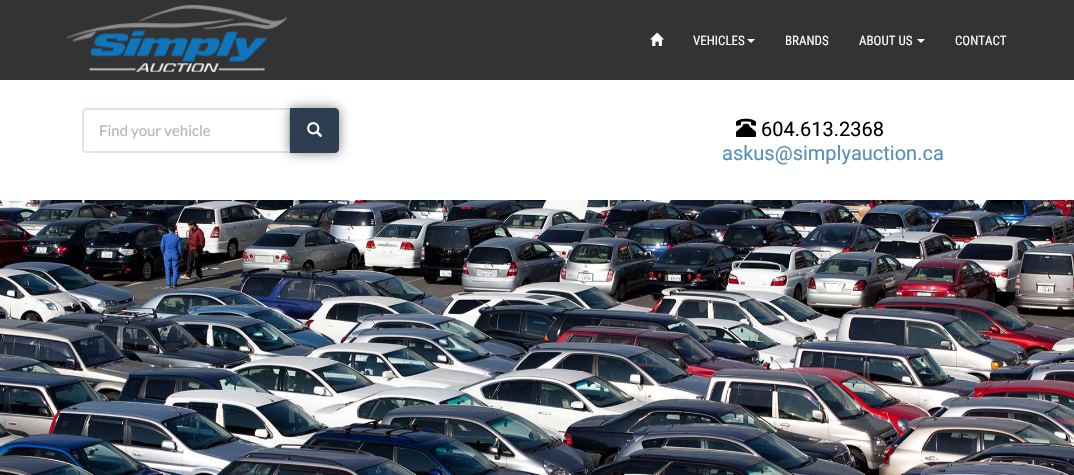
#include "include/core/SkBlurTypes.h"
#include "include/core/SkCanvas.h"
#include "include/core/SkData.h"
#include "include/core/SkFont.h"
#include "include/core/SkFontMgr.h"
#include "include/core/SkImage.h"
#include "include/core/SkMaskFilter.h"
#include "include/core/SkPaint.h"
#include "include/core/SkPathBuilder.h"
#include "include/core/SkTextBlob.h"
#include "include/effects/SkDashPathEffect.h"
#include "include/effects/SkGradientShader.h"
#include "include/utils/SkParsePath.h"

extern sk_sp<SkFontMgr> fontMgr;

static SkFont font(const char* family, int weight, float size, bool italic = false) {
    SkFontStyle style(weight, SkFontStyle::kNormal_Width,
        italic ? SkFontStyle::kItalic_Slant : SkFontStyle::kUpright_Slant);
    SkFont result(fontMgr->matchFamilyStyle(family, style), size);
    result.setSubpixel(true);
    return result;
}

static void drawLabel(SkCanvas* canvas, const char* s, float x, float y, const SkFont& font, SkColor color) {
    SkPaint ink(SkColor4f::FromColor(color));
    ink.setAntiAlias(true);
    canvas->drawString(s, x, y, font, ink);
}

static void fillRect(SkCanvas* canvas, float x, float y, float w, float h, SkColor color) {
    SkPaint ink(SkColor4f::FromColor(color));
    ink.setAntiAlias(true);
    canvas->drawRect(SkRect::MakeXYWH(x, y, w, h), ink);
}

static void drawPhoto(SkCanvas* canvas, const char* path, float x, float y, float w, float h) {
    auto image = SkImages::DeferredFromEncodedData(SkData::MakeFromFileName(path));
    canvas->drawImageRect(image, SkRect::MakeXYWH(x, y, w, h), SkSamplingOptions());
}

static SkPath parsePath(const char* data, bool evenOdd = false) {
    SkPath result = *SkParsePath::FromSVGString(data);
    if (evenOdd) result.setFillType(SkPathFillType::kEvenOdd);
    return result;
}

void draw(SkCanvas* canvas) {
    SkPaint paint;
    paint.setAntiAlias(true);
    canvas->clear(0xFFFFFFFF);
    fillRect(canvas, 0, 0, 1074, 80, 0xFF333333);
    drawPhoto(canvas, "assets/img1.png", 67, 5, 220, 67);
    drawPhoto(canvas, "assets/img2.png", 650, 32, 14, 14);
    SkFont font1 = font("Roboto Condensed", 400, 13);
    drawLabel(canvas, "VEHICLES", 693, 45, font1, 0xFFFFFFFF);
    paint.setColor(0xFFFFFFFF);
    canvas->drawPath(parsePath("M747 39H755L751 43Z"), paint);
    drawLabel(canvas, "BRANDS", 785, 45, font1, 0xFFFFFFFF);
    drawLabel(canvas, "ABOUT US", 859, 45, font1, 0xFFFFFFFF);
    canvas->drawPath(parsePath("M917 39H925L921 43Z"), paint);
    drawLabel(canvas, "CONTACT", 955, 45, font1, 0xFFFFFFFF);
    paint.setStroke(true);
    paint.setStrokeWidth(2);
    paint.setColor(0xFFDCE4EC);
    canvas->drawPath(parsePath("M86 109H290V152H86C84.5 152 83 150.5 83 149V112C83 110.5 84.5 109 86 109Z"), paint);
    SkFont font2 = font("Lato", 400, 15);
    drawLabel(canvas, "Find your vehicle", 99, 136, font2, 0xFFACB6C0);
    paint.setStroke(false);
    paint.setColor(0x80000000);
    paint.setMaskFilter(SkMaskFilter::MakeBlur(kNormal_SkBlurStyle, 6));
    canvas->drawRoundRect(SkRect::MakeXYWH(290, 108, 49, 45), 4, 4, paint);
    paint.setMaskFilter(nullptr);
    paint.setColor(0xFF2C3E50);
    canvas->drawPath(parsePath("M291 109H335C336.5 109 338 110.5 338 112V149C338 150.5 336.5 152 335 152H291Z"), paint);
    paint.setStroke(true);
    canvas->drawPath(parsePath("M291 109H335C336.5 109 338 110.5 338 112V149C338 150.5 336.5 152 335 152H291Z"), paint);
    drawPhoto(canvas, "assets/img3.png", 307, 122, 16, 15);
    drawPhoto(canvas, "assets/img4.png", 736, 118, 20, 19);
    SkFont font3 = font("Roboto", 400, 20);
    drawLabel(canvas, "604.613.2368", 761, 136, font3, 0xFF000000);
    drawLabel(canvas, "askus@simplyauction.ca", 722, 160, font3, 0xFF558EBA);
    drawPhoto(canvas, "assets/img5.png", 0, 200, 1074, 275);
}
